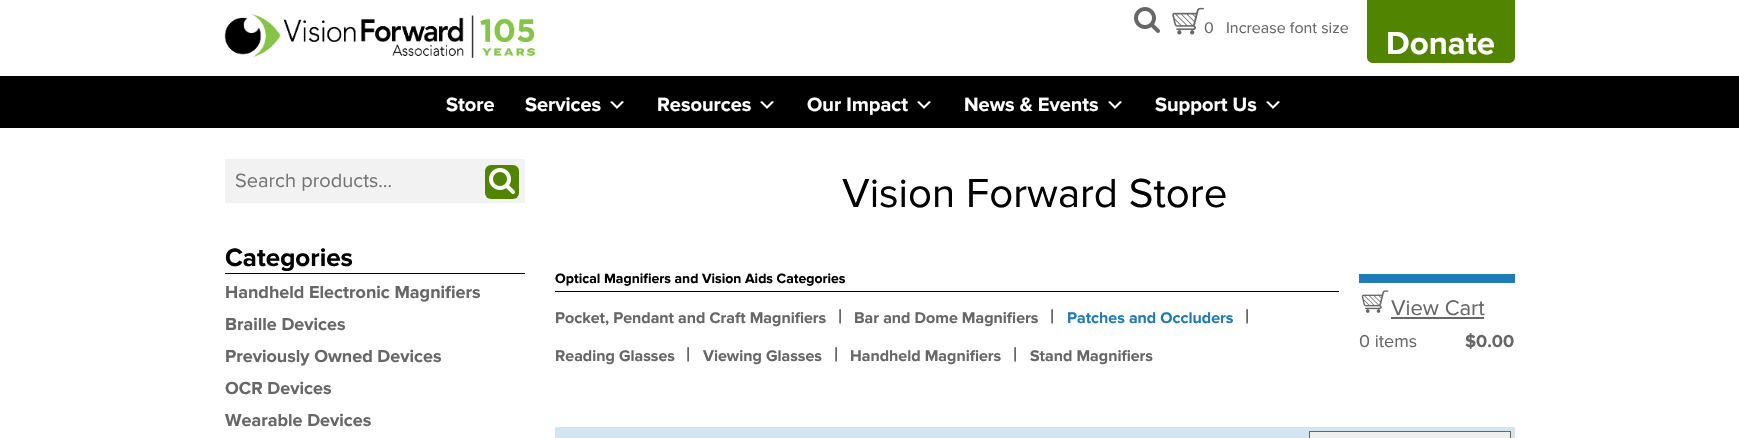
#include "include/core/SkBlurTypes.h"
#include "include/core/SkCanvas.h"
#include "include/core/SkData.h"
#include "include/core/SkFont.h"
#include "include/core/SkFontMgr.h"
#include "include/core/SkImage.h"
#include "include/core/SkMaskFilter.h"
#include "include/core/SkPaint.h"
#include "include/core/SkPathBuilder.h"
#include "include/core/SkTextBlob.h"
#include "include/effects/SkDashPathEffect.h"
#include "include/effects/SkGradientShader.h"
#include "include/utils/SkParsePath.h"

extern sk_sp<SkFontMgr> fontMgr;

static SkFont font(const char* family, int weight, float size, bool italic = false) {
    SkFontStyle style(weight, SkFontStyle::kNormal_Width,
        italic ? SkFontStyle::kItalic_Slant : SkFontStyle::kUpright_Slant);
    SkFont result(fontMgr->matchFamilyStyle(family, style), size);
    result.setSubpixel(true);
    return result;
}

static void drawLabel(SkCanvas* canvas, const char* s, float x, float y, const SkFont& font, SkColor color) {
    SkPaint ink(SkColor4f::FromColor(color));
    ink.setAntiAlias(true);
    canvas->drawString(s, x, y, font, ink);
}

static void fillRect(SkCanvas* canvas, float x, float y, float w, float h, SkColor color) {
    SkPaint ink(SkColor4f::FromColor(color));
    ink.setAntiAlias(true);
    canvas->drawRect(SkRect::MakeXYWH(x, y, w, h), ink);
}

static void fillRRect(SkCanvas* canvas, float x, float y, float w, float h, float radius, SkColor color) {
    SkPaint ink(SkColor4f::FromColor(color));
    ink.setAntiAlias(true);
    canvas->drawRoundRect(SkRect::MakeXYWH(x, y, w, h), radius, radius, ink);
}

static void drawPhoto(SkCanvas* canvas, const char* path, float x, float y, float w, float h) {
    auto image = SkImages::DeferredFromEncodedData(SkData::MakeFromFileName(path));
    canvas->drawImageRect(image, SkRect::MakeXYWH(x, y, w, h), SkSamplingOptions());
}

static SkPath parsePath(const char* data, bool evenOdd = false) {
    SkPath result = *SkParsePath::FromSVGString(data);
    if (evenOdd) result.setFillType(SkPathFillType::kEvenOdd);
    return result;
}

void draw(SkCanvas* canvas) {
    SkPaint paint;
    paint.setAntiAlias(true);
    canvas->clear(0xFFFFFFFF);
    drawPhoto(canvas, "assets/img1.png", 224, 14, 312, 44);
    drawPhoto(canvas, "assets/img2.png", 1134, 7, 26, 26);
    drawPhoto(canvas, "assets/img3.png", 1172, 7, 32, 28);
    SkFont font1 = font("Proxima Nova", 400, 16);
    drawLabel(canvas, "0", 1204, 33, font1, 0xFF676767);
    drawLabel(canvas, "Increase font size", 1226, 33, font1, 0xFF676767);
    paint.setColor(0xFF518400);
    canvas->drawPath(parsePath("M1367 0H1515V57C1515 60.5 1512.5 63 1509 63H1373C1369.5 63 1367 60.5 1367 57Z"), paint);
    SkFont font2 = font("Proxima Nova", 700, 33);
    drawLabel(canvas, "Donate", 1386, 54, font2, 0xFFFFFFFF);
    fillRect(canvas, 0, 76, 1739, 52, 0xFF000000);
    SkFont font3 = font("Proxima Nova", 700, 20);
    drawLabel(canvas, "Store", 446, 111, font3, 0xFFFFFFFF);
    drawLabel(canvas, "Services", 525, 111, font3, 0xFFFFFFFF);
    drawPhoto(canvas, "assets/img4.png", 610, 101, 14, 8);
    drawLabel(canvas, "Resources", 657, 111, font3, 0xFFFFFFFF);
    drawPhoto(canvas, "assets/img4.png", 760, 101, 14, 8);
    drawLabel(canvas, "Our Impact", 807, 111, font3, 0xFFFFFFFF);
    drawPhoto(canvas, "assets/img4.png", 917, 101, 14, 8);
    drawLabel(canvas, "News & Events", 964, 111, font3, 0xFFFFFFFF);
    drawPhoto(canvas, "assets/img4.png", 1108, 101, 14, 8);
    drawLabel(canvas, "Support Us", 1155, 111, font3, 0xFFFFFFFF);
    drawPhoto(canvas, "assets/img4.png", 1266, 101, 14, 8);
    fillRect(canvas, 225, 159, 300, 44, 0xFFF2F2F2);
    SkFont font4 = font("Proxima Nova", 400, 20);
    drawLabel(canvas, "Search products…", 235, 187, font4, 0xFF757575);
    fillRRect(canvas, 485, 165, 34, 34, 6, 0xFF518400);
    drawPhoto(canvas, "assets/img5.png", 489, 168, 26, 26);
    fillRect(canvas, 225, 273, 300, 1, 0xFF000000);
    SkFont font5 = font("Proxima Nova", 700, 26);
    drawLabel(canvas, "Categories", 225, 266, font5, 0xFF000000);
    SkFont font6 = font("Proxima Nova", 700, 18);
    drawLabel(canvas, "Handheld Electronic Magnifiers", 225, 298, font6, 0xFF676767);
    drawLabel(canvas, "Braille Devices", 225, 330, font6, 0xFF676767);
    drawLabel(canvas, "Previously Owned Devices", 225, 362, font6, 0xFF676767);
    drawLabel(canvas, "OCR Devices", 225, 394, font6, 0xFF676767);
    drawLabel(canvas, "Wearable Devices", 225, 426, font6, 0xFF676767);
    SkFont font7 = font("Proxima Nova", 400, 42);
    drawLabel(canvas, "Vision Forward Store", 842, 207, font7, 0xFF000000);
    fillRect(canvas, 555, 291, 784, 1, 0xFF000000);
    SkFont font8 = font("Proxima Nova", 700, 14);
    drawLabel(canvas, "Optical Magnifiers and Vision Aids Categories", 555, 283, font8, 0xFF000000);
    SkFont font9 = font("Proxima Nova", 700, 16);
    drawLabel(canvas, "Pocket, Pendant and Craft Magnifiers", 555, 323, font9, 0xFF676767);
    drawLabel(canvas, "|", 838, 323, font3, 0xFF676767);
    drawLabel(canvas, "Bar and Dome Magnifiers", 854, 323, font9, 0xFF676767);
    drawLabel(canvas, "|", 1050, 323, font3, 0xFF676767);
    drawLabel(canvas, "Patches and Occluders", 1067, 323, font9, 0xFF207CB8);
    drawLabel(canvas, "|", 1245, 323, font3, 0xFF676767);
    drawLabel(canvas, "Reading Glasses", 555, 361, font9, 0xFF676767);
    drawLabel(canvas, "|", 686, 361, font3, 0xFF676767);
    drawLabel(canvas, "Viewing Glasses", 703, 361, font9, 0xFF676767);
    drawLabel(canvas, "|", 834, 361, font3, 0xFF676767);
    drawLabel(canvas, "Handheld Magnifiers", 850, 361, font9, 0xFF676767);
    drawLabel(canvas, "|", 1013, 361, font3, 0xFF676767);
    drawLabel(canvas, "Stand Magnifiers", 1030, 361, font9, 0xFF676767);
    fillRect(canvas, 1359, 274, 156, 9, 0xFF207CB8);
    drawPhoto(canvas, "assets/img6.png", 1361, 290, 28, 23);
    SkFont font10 = font("Proxima Nova", 400, 22);
    drawLabel(canvas, "View Cart", 1391, 315, font10, 0xFF676767);
    fillRect(canvas, 1391, 317, 93, 2, 0xFF676767);
    SkFont font11 = font("Proxima Nova", 400, 18);
    drawLabel(canvas, "0 items", 1359, 347, font11, 0xFF676767);
    drawLabel(canvas, "$0.00", 1465, 347, font6, 0xFF676767);
    fillRect(canvas, 555, 427, 960, 11, 0xFFD2E5F1);
    paint.setColor(0xFFEFEFEF);
    canvas->drawRect(SkRect::MakeXYWH(1309.5f, 431.5f, 201, 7), paint);
    paint.setStroke(true);
    paint.setStrokeWidth(1);
    paint.setColor(0xFF676767);
    canvas->drawRect(SkRect::MakeXYWH(1309.5f, 431.5f, 201, 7), paint);
}
